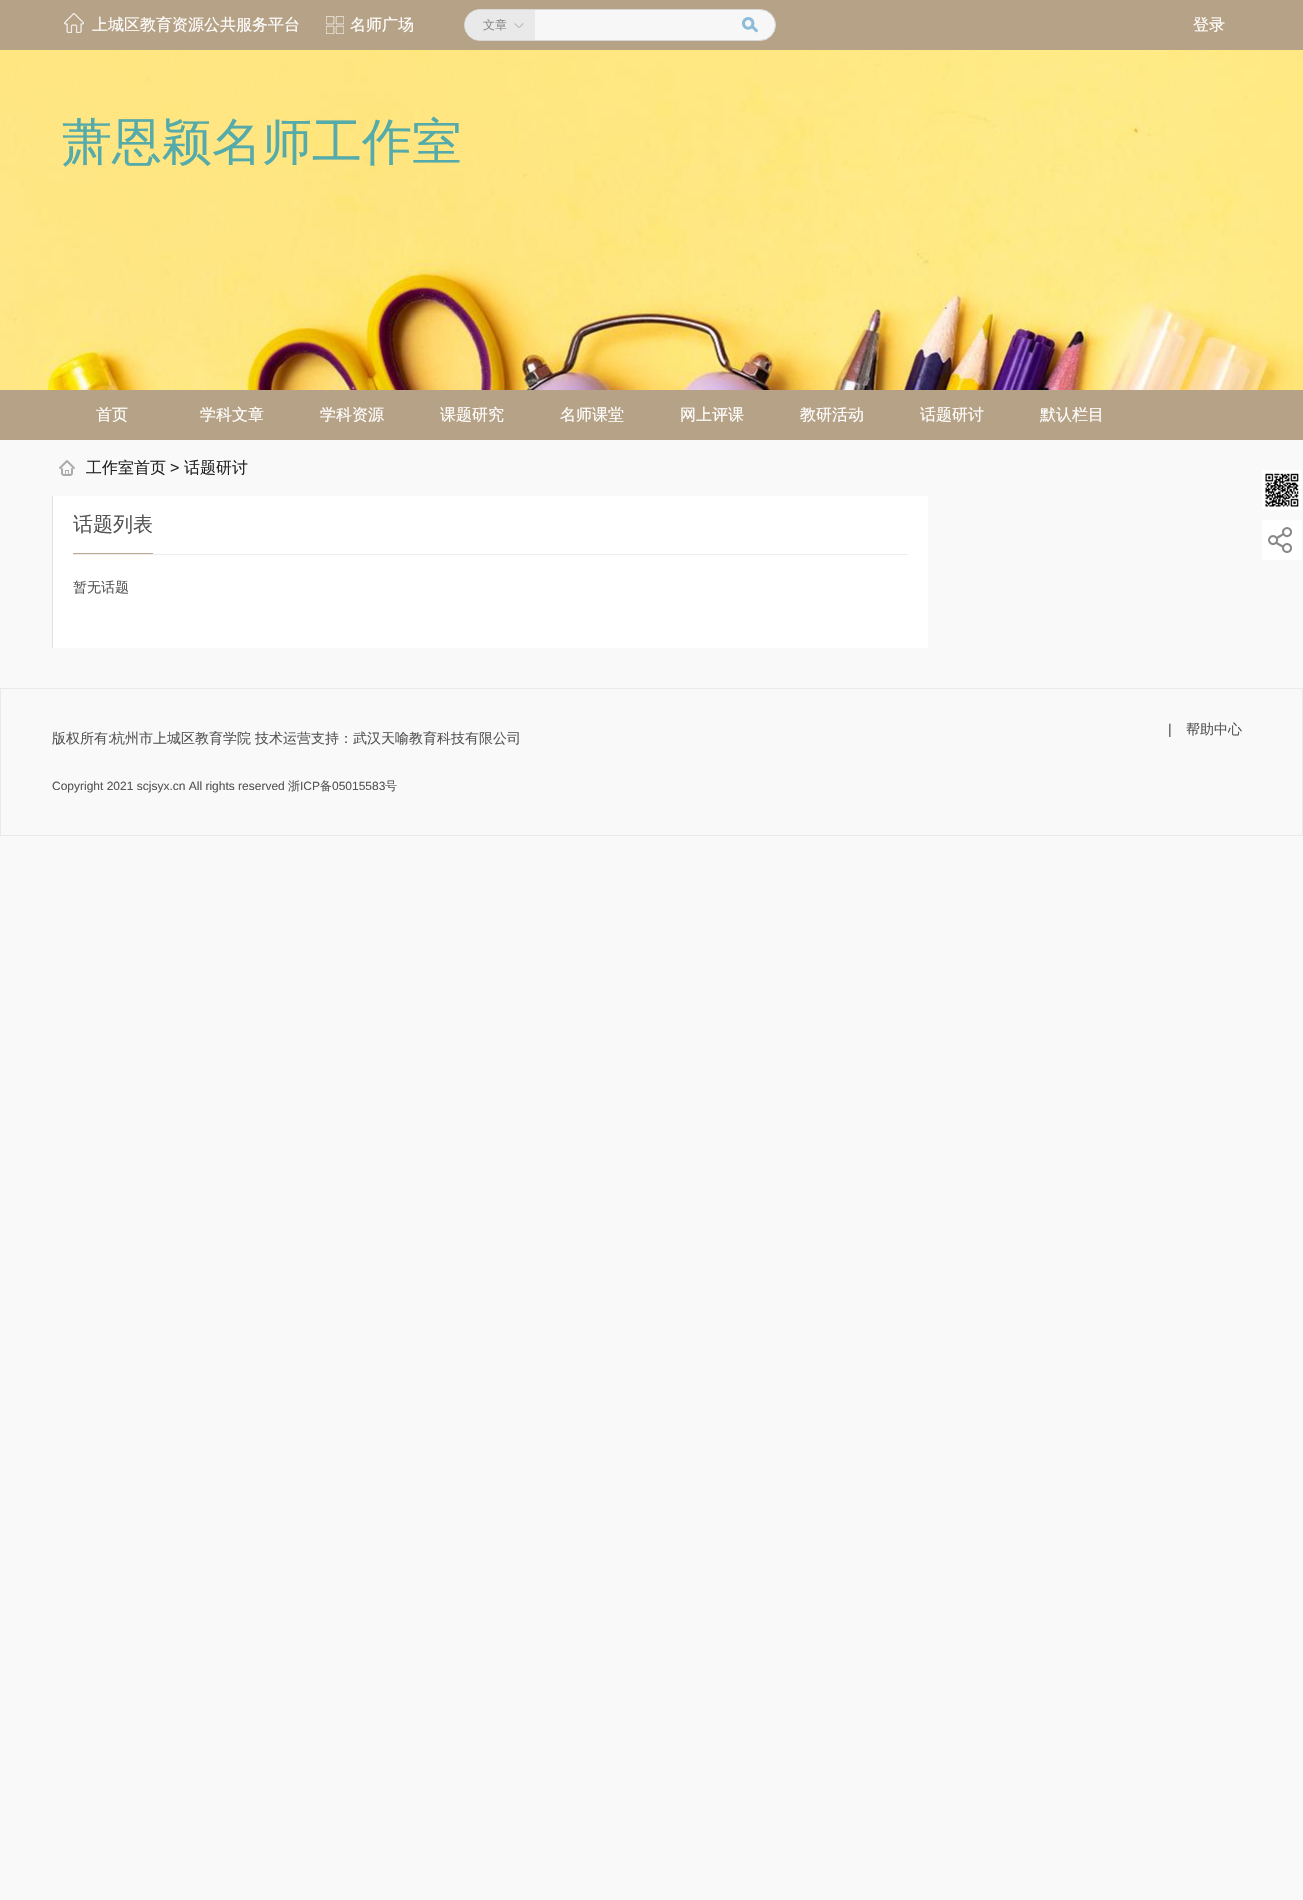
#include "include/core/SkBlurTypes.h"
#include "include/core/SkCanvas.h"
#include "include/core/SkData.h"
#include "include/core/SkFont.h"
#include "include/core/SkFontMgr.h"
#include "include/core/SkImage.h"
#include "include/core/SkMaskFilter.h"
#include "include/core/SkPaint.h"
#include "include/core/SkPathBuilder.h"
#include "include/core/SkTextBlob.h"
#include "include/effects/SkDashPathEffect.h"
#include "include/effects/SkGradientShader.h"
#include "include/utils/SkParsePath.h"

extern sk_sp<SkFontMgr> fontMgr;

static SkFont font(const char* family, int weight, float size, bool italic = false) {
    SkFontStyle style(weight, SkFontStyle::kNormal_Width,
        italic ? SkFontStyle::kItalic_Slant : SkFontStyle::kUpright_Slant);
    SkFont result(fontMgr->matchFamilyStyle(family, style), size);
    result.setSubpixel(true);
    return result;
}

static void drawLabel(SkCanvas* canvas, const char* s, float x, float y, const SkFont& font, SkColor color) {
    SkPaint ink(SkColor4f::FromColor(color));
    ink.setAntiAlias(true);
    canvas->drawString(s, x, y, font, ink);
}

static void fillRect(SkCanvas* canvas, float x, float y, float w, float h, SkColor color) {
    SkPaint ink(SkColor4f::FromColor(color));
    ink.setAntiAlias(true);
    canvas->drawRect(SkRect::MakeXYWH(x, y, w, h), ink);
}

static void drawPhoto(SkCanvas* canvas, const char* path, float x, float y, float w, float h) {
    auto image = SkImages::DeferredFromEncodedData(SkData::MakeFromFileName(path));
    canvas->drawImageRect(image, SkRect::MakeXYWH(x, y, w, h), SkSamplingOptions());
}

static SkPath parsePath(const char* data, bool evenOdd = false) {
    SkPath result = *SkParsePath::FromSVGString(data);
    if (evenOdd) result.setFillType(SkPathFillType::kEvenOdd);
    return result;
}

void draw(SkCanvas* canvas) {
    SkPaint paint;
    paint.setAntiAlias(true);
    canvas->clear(0xFFF9F9F9);
    fillRect(canvas, 0, 0, 1303, 50, 0xFFB6A286);
    drawPhoto(canvas, "assets/img1.png", 64, 13, 20, 20);
    SkFont font1 = font("WenQuanYi Zen Hei", 500, 16);
    drawLabel(canvas, "上城区教育资源公共服务平台", 92, 30, font1, 0xFFFFFFFF);
    drawPhoto(canvas, "assets/img2.png", 326, 16, 18, 18);
    drawLabel(canvas, "名师广场", 350, 30, font1, 0xFFFFFFFF);
    paint.setColor(0xFFF7F7F7);
    canvas->drawRoundRect(SkRect::MakeXYWH(464.5f, 9.5f, 311, 31), 15.5f, 15.5f, paint);
    paint.setStroke(true);
    paint.setStrokeWidth(1);
    paint.setColor(0xFFD8D7D7);
    canvas->drawRoundRect(SkRect::MakeXYWH(464.5f, 9.5f, 311, 31), 15.5f, 15.5f, paint);
    paint.setStroke(false);
    paint.setColor(0xFFE9E9E9);
    canvas->drawPath(parsePath("M480 10H535V40H480C471.5 40 465 33.5 465 25C465 16.5 471.5 10 480 10Z"), paint);
    SkFont font2 = font("WenQuanYi Zen Hei", 500, 12);
    drawLabel(canvas, "文章", 483, 29, font2, 0xFF888888);
    drawPhoto(canvas, "assets/img3.png", 514, 23, 10, 5);
    drawPhoto(canvas, "assets/img4.png", 742, 17, 16, 16);
    drawLabel(canvas, "登录", 1193, 30, font1, 0xFFFFFFFF);
    drawPhoto(canvas, "assets/img5.png", 0, 50, 1303, 340);
    SkFont font3 = font("WenQuanYi Zen Hei", 500, 50);
    drawLabel(canvas, "萧恩颖名师工作室", 62, 159, font3, 0xFF55AAAA);
    fillRect(canvas, 0, 390, 1303, 50, 0xFFB6A286);
    drawLabel(canvas, "首页", 96, 420, font1, 0xFFFFFFFF);
    drawLabel(canvas, "学科文章", 200, 420, font1, 0xFFFFFFFF);
    drawLabel(canvas, "学科资源", 320, 420, font1, 0xFFFFFFFF);
    drawLabel(canvas, "课题研究", 440, 420, font1, 0xFFFFFFFF);
    drawLabel(canvas, "名师课堂", 560, 420, font1, 0xFFFFFFFF);
    drawLabel(canvas, "网上评课", 680, 420, font1, 0xFFFFFFFF);
    drawLabel(canvas, "教研活动", 800, 420, font1, 0xFFFFFFFF);
    drawLabel(canvas, "话题研讨", 920, 420, font1, 0xFFFFFFFF);
    drawLabel(canvas, "默认栏目", 1040, 420, font1, 0xFFFFFFFF);
    drawPhoto(canvas, "assets/img6.png", 59, 460, 16, 16);
    drawLabel(canvas, "工作室首页", 86, 473, font1, 0xFF222222);
    SkFont font4 = font("Liberation Sans", 400, 16);
    drawLabel(canvas, ">", 170, 473, font4, 0xFF222222);
    drawLabel(canvas, "话题研讨", 184, 473, font1, 0xFF222222);
    fillRect(canvas, 53, 496, 875, 152, 0xFFFFFFFF);
    fillRect(canvas, 52, 496, 1, 152, 0xFFE0E0E0);
    fillRect(canvas, 73, 554, 835, 1, 0xFFEDEDED);
    fillRect(canvas, 73, 553, 80, 1, 0xFFBBA990);
    SkFont font5 = font("WenQuanYi Zen Hei", 500, 20);
    drawLabel(canvas, "话题列表", 73, 531, font5, 0xFF555555);
    SkFont font6 = font("WenQuanYi Zen Hei", 500, 14);
    drawLabel(canvas, "暂无话题", 73, 592, font6, 0xFF555555);
    fillRect(canvas, 1262, 470, 40, 40, 0xFFFFFFFF);
    drawPhoto(canvas, "assets/img7.png", 1265, 473, 34, 34);
    fillRect(canvas, 1262, 520, 40, 40, 0xFFFFFFFF);
    drawPhoto(canvas, "assets/img8.png", 1268, 527, 24, 26);
    paint.setStroke(true);
    paint.setColor(0xFFEAEAEA);
    canvas->drawRect(SkRect::MakeXYWH(0.5f, 688.5f, 1302, 147), paint);
    drawLabel(canvas, "版权所有", 52, 743, font6, 0xFF555555);
    SkFont font7 = font("Liberation Sans", 400, 14);
    drawLabel(canvas, ":", 108, 743, font7, 0xFF555555);
    drawLabel(canvas, "杭州市上城区教育学院", 111, 743, font6, 0xFF555555);
    drawLabel(canvas, "技术运营支持：武汉天喻教育科技有限公司", 255, 743, font6, 0xFF555555);
    SkFont font8 = font("Liberation Sans", 400, 12);
    drawLabel(canvas, "Copyright 2021 scjsyx.cn All rights reserved", 52, 790, font8, 0xFF555555);
    drawLabel(canvas, "浙", 288, 790, font2, 0xFF555555);
    drawLabel(canvas, "ICP", 300, 790, font8, 0xFF555555);
    drawLabel(canvas, "备", 320, 790, font2, 0xFF555555);
    drawLabel(canvas, "05015583", 332, 790, font8, 0xFF555555);
    drawLabel(canvas, "号", 385, 790, font2, 0xFF555555);
    drawLabel(canvas, "|", 1168, 734, font7, 0xFF555555);
    drawLabel(canvas, "帮助中心", 1186, 734, font6, 0xFF555555);
}
